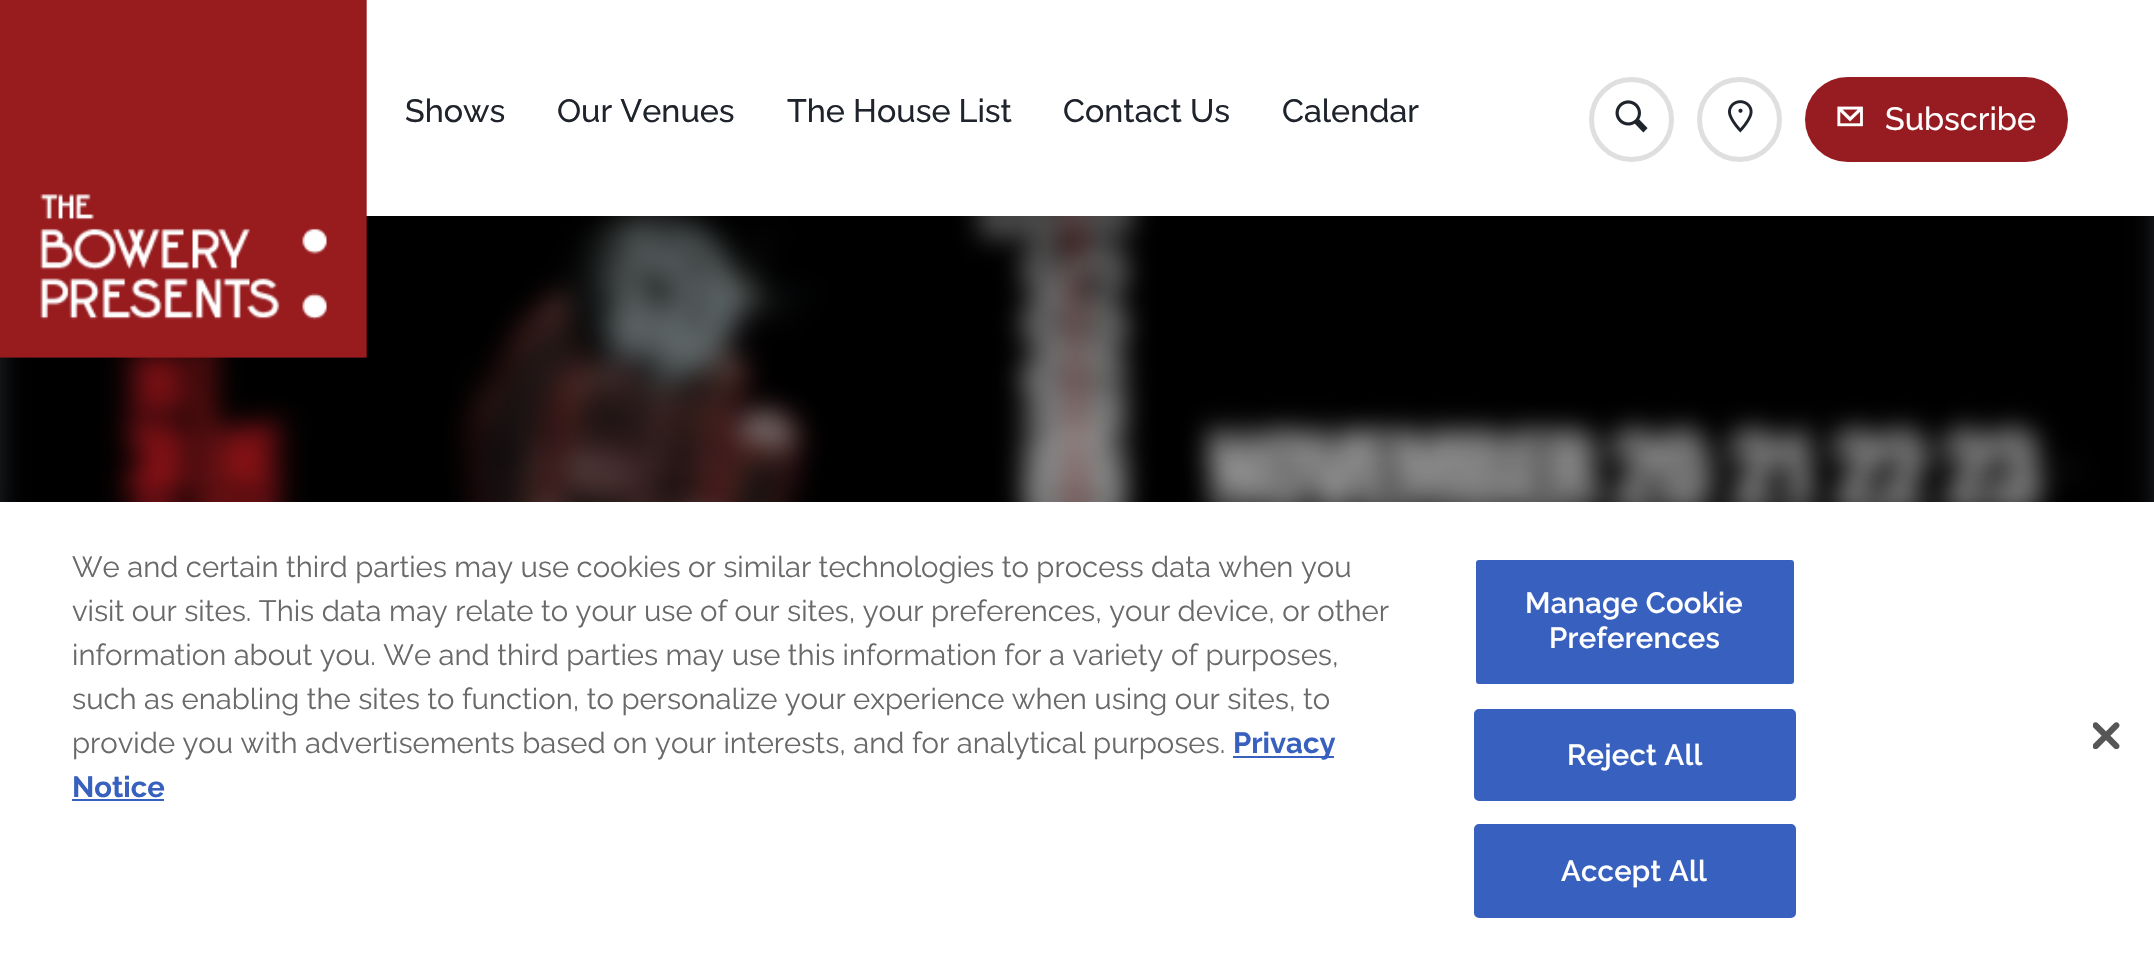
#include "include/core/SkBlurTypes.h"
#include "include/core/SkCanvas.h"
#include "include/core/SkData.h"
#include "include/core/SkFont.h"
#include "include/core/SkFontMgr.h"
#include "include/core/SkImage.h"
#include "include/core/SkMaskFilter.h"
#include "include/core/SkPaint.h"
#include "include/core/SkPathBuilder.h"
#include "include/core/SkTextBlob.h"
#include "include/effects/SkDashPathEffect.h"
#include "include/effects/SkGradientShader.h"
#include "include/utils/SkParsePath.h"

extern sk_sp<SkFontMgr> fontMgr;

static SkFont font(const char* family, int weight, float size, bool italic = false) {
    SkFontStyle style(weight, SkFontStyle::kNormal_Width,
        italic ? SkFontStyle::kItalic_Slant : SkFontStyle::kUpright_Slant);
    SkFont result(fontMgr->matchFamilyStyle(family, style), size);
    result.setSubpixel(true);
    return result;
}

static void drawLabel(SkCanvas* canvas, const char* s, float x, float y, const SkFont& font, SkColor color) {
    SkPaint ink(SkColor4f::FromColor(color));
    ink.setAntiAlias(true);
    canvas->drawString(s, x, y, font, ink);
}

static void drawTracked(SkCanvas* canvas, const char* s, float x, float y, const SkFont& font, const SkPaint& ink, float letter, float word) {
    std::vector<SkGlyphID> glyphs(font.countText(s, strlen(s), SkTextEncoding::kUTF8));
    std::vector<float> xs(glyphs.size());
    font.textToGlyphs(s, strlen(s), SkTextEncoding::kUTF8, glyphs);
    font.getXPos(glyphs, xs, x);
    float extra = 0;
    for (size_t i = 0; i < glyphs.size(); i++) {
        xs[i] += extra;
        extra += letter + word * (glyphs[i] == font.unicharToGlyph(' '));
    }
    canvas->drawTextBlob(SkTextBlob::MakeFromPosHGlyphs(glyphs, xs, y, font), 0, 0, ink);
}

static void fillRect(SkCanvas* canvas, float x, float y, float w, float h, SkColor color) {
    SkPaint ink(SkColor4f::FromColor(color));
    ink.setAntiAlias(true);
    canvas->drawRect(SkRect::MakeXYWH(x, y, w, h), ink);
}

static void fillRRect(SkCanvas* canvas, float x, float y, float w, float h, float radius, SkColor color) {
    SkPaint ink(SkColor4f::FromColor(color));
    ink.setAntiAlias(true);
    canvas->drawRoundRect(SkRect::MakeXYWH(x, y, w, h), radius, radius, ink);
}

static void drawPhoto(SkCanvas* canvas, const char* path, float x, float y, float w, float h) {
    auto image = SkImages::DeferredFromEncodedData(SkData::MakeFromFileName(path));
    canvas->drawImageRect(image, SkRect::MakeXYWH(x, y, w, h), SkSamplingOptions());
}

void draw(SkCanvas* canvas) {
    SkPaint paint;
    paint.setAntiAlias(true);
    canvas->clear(0xFF23272B);
    fillRect(canvas, 366, 0, 1788, 216, 0xFFFFFFFF);
    drawPhoto(canvas, "assets/img5.png", 0, 216, 2154, 286);
    drawPhoto(canvas, "assets/img1.png", 0, 0, 367, 358);
    SkFont font1 = font("Raleway", 100, 32.25f);
    drawLabel(canvas, "Shows", 405, 122, font1, 0xFF1F242C);
    drawLabel(canvas, "Our Venues", 557, 122, font1, 0xFF1F242C);
    drawLabel(canvas, "The House List", 787, 122, font1, 0xFF1F242C);
    drawLabel(canvas, "Contact Us", 1063, 122, font1, 0xFF1F242C);
    drawLabel(canvas, "Calendar", 1282, 122, font1, 0xFF1F242C);
    paint.setStroke(true);
    paint.setStrokeWidth(5);
    paint.setColor(0xFFDFDFDF);
    canvas->drawCircle(1631.5f, 119.5f, 40, paint);
    drawPhoto(canvas, "assets/img2.png", 1615, 100, 33, 33);
    canvas->drawCircle(1739.5f, 119.5f, 40, paint);
    drawPhoto(canvas, "assets/img3.png", 1728, 100, 25, 33);
    fillRRect(canvas, 1805, 77, 263, 85, 42.5f, 0xFF971C21);
    drawPhoto(canvas, "assets/img4.png", 1837, 106, 26, 21);
    drawLabel(canvas, "Subscribe", 1885, 130, font1, 0xFFFFFFFF);
    paint.setStroke(false);
    paint.setColor(0x33000000);
    paint.setMaskFilter(SkMaskFilter::MakeBlur(kNormal_SkBlurStyle, 20));
    canvas->drawRect(SkRect::MakeXYWH(0, 502, 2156, 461), paint);
    paint.setMaskFilter(nullptr);
    fillRect(canvas, 0, 502, 2154, 460, 0xFFFFFFFF);
    SkFont font2 = font("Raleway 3", 100, 29.25f);
    drawLabel(canvas, "We and certain third parties may use cookies or similar technologies to process data when you", 72, 577, font2, 0xFF696969);
    drawLabel(canvas, "visit our sites. This data may relate to your use of our sites, your preferences, your device, or other", 72, 621, font2, 0xFF696969);
    drawLabel(canvas, "information about you. We and third parties may use this information for a variety of purposes,", 72, 665, font2, 0xFF696969);
    drawLabel(canvas, "such as enabling the sites to function, to personalize your experience when using our sites, to", 72, 709, font2, 0xFF696969);
    drawLabel(canvas, "provide you with advertisements based on your interests, and for analytical purposes.", 72, 753, font2, 0xFF696969);
    fillRect(canvas, 1233, 756, 101, 2, 0xFF3860BE);
    SkFont font3 = font("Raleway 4", 100, 29.25f);
    drawLabel(canvas, "Privacy", 1233, 753, font3, 0xFF3860BE);
    drawLabel(canvas, "Notice", 72, 797, font3, 0xFF3860BE);
    fillRect(canvas, 72, 799, 92, 2, 0xFF3860BE);
    paint.setColor(0xFF3860BE);
    canvas->drawRoundRect(SkRect::MakeXYWH(1475, 559, 320, 126), 4, 4, paint);
    paint.setStroke(true);
    paint.setStrokeWidth(2);
    paint.setColor(0xFFFFFFFF);
    canvas->drawRoundRect(SkRect::MakeXYWH(1475, 559, 320, 126), 4, 4, paint);
    SkFont font4 = font("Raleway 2", 100, 29.25f);
    paint.setStroke(false);
    drawTracked(canvas, "Manage Cookie", 1525, 613, font4, paint, 0.25f, 0);
    drawTracked(canvas, "Preferences", 1549, 648, font4, paint, 0.25f, 0);
    paint.setColor(0xFF3860BE);
    canvas->drawRoundRect(SkRect::MakeXYWH(1475, 710, 320, 90), 4, 4, paint);
    paint.setStroke(true);
    canvas->drawRoundRect(SkRect::MakeXYWH(1475, 710, 320, 90), 4, 4, paint);
    paint.setStroke(false);
    paint.setColor(0xFFFFFFFF);
    drawTracked(canvas, "Reject All", 1567, 765, font4, paint, 0.25f, 0);
    paint.setColor(0xFF3860BE);
    canvas->drawRoundRect(SkRect::MakeXYWH(1475, 825, 320, 92), 4, 4, paint);
    paint.setStroke(true);
    canvas->drawRoundRect(SkRect::MakeXYWH(1475, 825, 320, 92), 4, 4, paint);
    paint.setStroke(false);
    paint.setColor(0xFFFFFFFF);
    drawTracked(canvas, "Accept All", 1561, 881, font4, paint, 0.25f, 0);
    drawPhoto(canvas, "assets/img6.png", 2093, 722, 27, 27);
}
